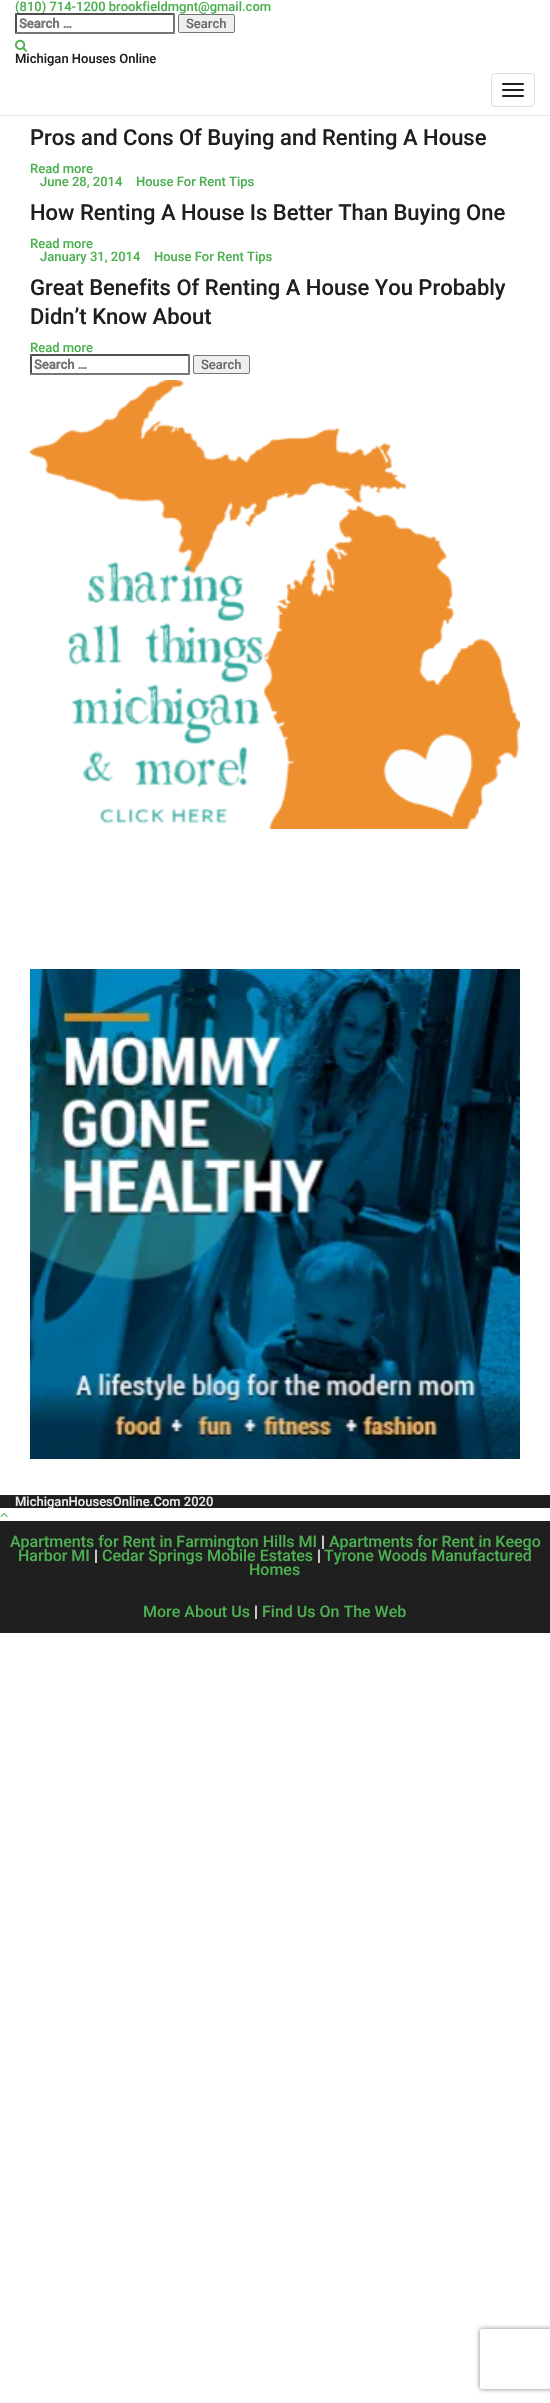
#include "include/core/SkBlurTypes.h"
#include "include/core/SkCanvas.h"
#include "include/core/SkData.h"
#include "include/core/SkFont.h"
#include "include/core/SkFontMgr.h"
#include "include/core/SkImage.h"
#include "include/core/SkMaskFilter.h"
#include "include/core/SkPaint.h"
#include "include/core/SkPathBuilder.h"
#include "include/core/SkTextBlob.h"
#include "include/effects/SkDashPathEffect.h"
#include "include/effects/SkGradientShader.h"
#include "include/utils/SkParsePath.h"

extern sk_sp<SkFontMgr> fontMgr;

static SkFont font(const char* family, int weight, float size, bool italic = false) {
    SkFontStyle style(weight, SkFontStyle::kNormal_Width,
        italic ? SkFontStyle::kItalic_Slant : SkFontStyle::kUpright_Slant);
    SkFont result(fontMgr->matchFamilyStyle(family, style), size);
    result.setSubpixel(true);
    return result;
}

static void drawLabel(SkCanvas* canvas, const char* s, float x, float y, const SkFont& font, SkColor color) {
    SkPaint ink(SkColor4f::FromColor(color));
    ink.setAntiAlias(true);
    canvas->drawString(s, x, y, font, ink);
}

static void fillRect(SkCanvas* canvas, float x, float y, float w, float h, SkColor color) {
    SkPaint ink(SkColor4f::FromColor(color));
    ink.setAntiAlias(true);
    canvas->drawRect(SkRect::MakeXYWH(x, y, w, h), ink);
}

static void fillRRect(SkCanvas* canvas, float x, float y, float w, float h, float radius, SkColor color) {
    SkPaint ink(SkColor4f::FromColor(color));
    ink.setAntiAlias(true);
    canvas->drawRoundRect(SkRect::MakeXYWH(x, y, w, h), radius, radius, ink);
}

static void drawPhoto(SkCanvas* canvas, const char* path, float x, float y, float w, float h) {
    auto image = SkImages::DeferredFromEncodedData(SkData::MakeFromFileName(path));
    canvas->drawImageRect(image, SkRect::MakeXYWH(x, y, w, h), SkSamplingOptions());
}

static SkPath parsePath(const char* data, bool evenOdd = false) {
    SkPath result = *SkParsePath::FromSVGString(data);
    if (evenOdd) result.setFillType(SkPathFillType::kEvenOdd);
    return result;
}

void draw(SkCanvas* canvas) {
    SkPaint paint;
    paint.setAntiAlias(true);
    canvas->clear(0xFFFFFFFF);
    fillRect(canvas, 0, 115, 550, 1, 0xFFE7E7E7);
    SkFont font1 = font("Roboto", 500, 13);
    drawLabel(canvas, "(810) 714-1200 brookfieldmgnt@gmail.com", 15, 11, font1, 0xFF4CAF50);
    fillRect(canvas, 17, 13, 27, 1, 0xFFFFFFFF);
    paint.setColor(0xFF4F4F4F);
    canvas->drawPath(parsePath("M15 13H175L173 15H17Z"), paint);
    paint.setColor(0xFF767676);
    canvas->drawPath(parsePath("M175 13V34L173 32V15Z"), paint);
    canvas->drawPath(parsePath("M175 34H15L17 32H173Z"), paint);
    paint.setColor(0xFF4F4F4F);
    canvas->drawPath(parsePath("M15 34V13L17 15V32Z"), paint);
    SkFont font2 = font("Roboto", 700, 13);
    drawLabel(canvas, "Search …", 19, 28, font2, 0xFF757575);
    paint.setColor(0xFFEFEFEF);
    canvas->drawRoundRect(SkRect::MakeXYWH(178.5f, 14.5f, 56, 18), 1.5f, 1.5f, paint);
    paint.setStroke(true);
    paint.setStrokeWidth(1);
    paint.setColor(0xFF767676);
    canvas->drawRoundRect(SkRect::MakeXYWH(178.5f, 14.5f, 56, 18), 1.5f, 1.5f, paint);
    drawLabel(canvas, "Search", 186, 28, font1, 0xFF666666);
    drawPhoto(canvas, "assets/img1.png", 15, 39, 12, 13);
    drawLabel(canvas, "Michigan Houses Online", 15, 63, font1, 0xFF1F1F1F);
    paint.setColor(0xFFDDDDDD);
    canvas->drawRoundRect(SkRect::MakeXYWH(491.5f, 73.5f, 43, 33), 3.5f, 3.5f, paint);
    fillRRect(canvas, 502, 83, 22, 2, 1, 0xFF1F1F1F);
    fillRRect(canvas, 502, 89, 22, 2, 1, 0xFF1F1F1F);
    fillRRect(canvas, 502, 95, 22, 2, 1, 0xFF1F1F1F);
    SkFont font3 = font("Roboto", 500, 22);
    drawLabel(canvas, "Pros and Cons Of Buying and Renting A House", 30, 145, font3, 0xFF1F1F1F);
    drawLabel(canvas, "Read more", 30, 173, font1, 0xFF4CAF50);
    drawLabel(canvas, "June 28, 2014", 40, 186, font1, 0xFF4CAF50);
    drawLabel(canvas, "House For Rent Tips", 136, 186, font1, 0xFF4CAF50);
    drawLabel(canvas, "How Renting A House Is Better Than Buying One", 30, 220, font3, 0xFF1F1F1F);
    drawLabel(canvas, "Read more", 30, 248, font1, 0xFF4CAF50);
    drawLabel(canvas, "January 31, 2014", 40, 261, font1, 0xFF4CAF50);
    drawLabel(canvas, "House For Rent Tips", 154, 261, font1, 0xFF4CAF50);
    drawLabel(canvas, "Great Benefits Of Renting A House You Probably", 30, 295, font3, 0xFF1F1F1F);
    drawLabel(canvas, "Didn’t Know About", 30, 324, font3, 0xFF1F1F1F);
    drawLabel(canvas, "Read more", 30, 352, font1, 0xFF4CAF50);
    paint.setStroke(false);
    paint.setColor(0xFF4F4F4F);
    canvas->drawPath(parsePath("M30 354H190L188 356H32Z"), paint);
    paint.setColor(0xFF767676);
    canvas->drawPath(parsePath("M190 354V375L188 373V356Z"), paint);
    canvas->drawPath(parsePath("M190 375H30L32 373H188Z"), paint);
    paint.setColor(0xFF4F4F4F);
    canvas->drawPath(parsePath("M30 375V354L32 356V373Z"), paint);
    drawLabel(canvas, "Search …", 34, 369, font2, 0xFF757575);
    paint.setColor(0xFFEFEFEF);
    canvas->drawRoundRect(SkRect::MakeXYWH(193.5f, 355.5f, 56, 18), 1.5f, 1.5f, paint);
    paint.setStroke(true);
    paint.setColor(0xFF767676);
    canvas->drawRoundRect(SkRect::MakeXYWH(193.5f, 355.5f, 56, 18), 1.5f, 1.5f, paint);
    drawLabel(canvas, "Search", 201, 369, font1, 0xFF666666);
    drawPhoto(canvas, "assets/img2.png", 30, 380, 490, 449);
    drawPhoto(canvas, "assets/img3.png", 30, 969, 490, 490);
    fillRect(canvas, 0, 1495, 550, 13, 0xFF1F1F1F);
    drawLabel(canvas, "MichiganHousesOnline.Com 2020", 15, 1506, font1, 0xFFEAEAEA);
    drawPhoto(canvas, "assets/img4.png", 0, 1512, 8, 5);
    fillRect(canvas, 0, 1521, 550, 112, 0xFF1F1F1F);
    SkFont font4 = font("Roboto", 500, 16);
    drawLabel(canvas, "Apartments for Rent in Farmington Hills MI", 10, 1547, font4, 0xFF4CAF50);
    drawLabel(canvas, "|", 321, 1547, font4, 0xFFFFFFFF);
    drawLabel(canvas, "Apartments for Rent in Keego", 329, 1547, font4, 0xFF4CAF50);
    drawLabel(canvas, "Harbor MI", 18, 1561, font4, 0xFF4CAF50);
    drawLabel(canvas, "|", 94, 1561, font4, 0xFFFFFFFF);
    drawLabel(canvas, "Cedar Springs Mobile Estates", 102, 1561, font4, 0xFF4CAF50);
    drawLabel(canvas, "|", 317, 1561, font4, 0xFFFFFFFF);
    drawLabel(canvas, "Tyrone Woods Manufactured", 324, 1561, font4, 0xFF4CAF50);
    drawLabel(canvas, "Homes", 249, 1575, font4, 0xFF4CAF50);
    drawLabel(canvas, "More About Us", 143, 1617, font4, 0xFF4CAF50);
    drawLabel(canvas, "|", 254, 1617, font4, 0xFFFFFFFF);
    drawLabel(canvas, "Find Us On The Web", 262, 1617, font4, 0xFF4CAF50);
    canvas->save();
    canvas->clipPath(parsePath("M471 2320H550V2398H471ZM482 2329H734C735 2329 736 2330 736 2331V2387C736 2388 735 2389 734 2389H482C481 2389 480 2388 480 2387V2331C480 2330 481 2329 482 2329Z", true), true);
    paint.setStroke(false);
    paint.setColor(0xFF808080);
    paint.setMaskFilter(SkMaskFilter::MakeBlur(kNormal_SkBlurStyle, 2.5f));
    canvas->drawRoundRect(SkRect::MakeXYWH(480, 2329, 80, 60), 2, 2, paint);
    paint.setMaskFilter(nullptr);
    canvas->restore();
}
